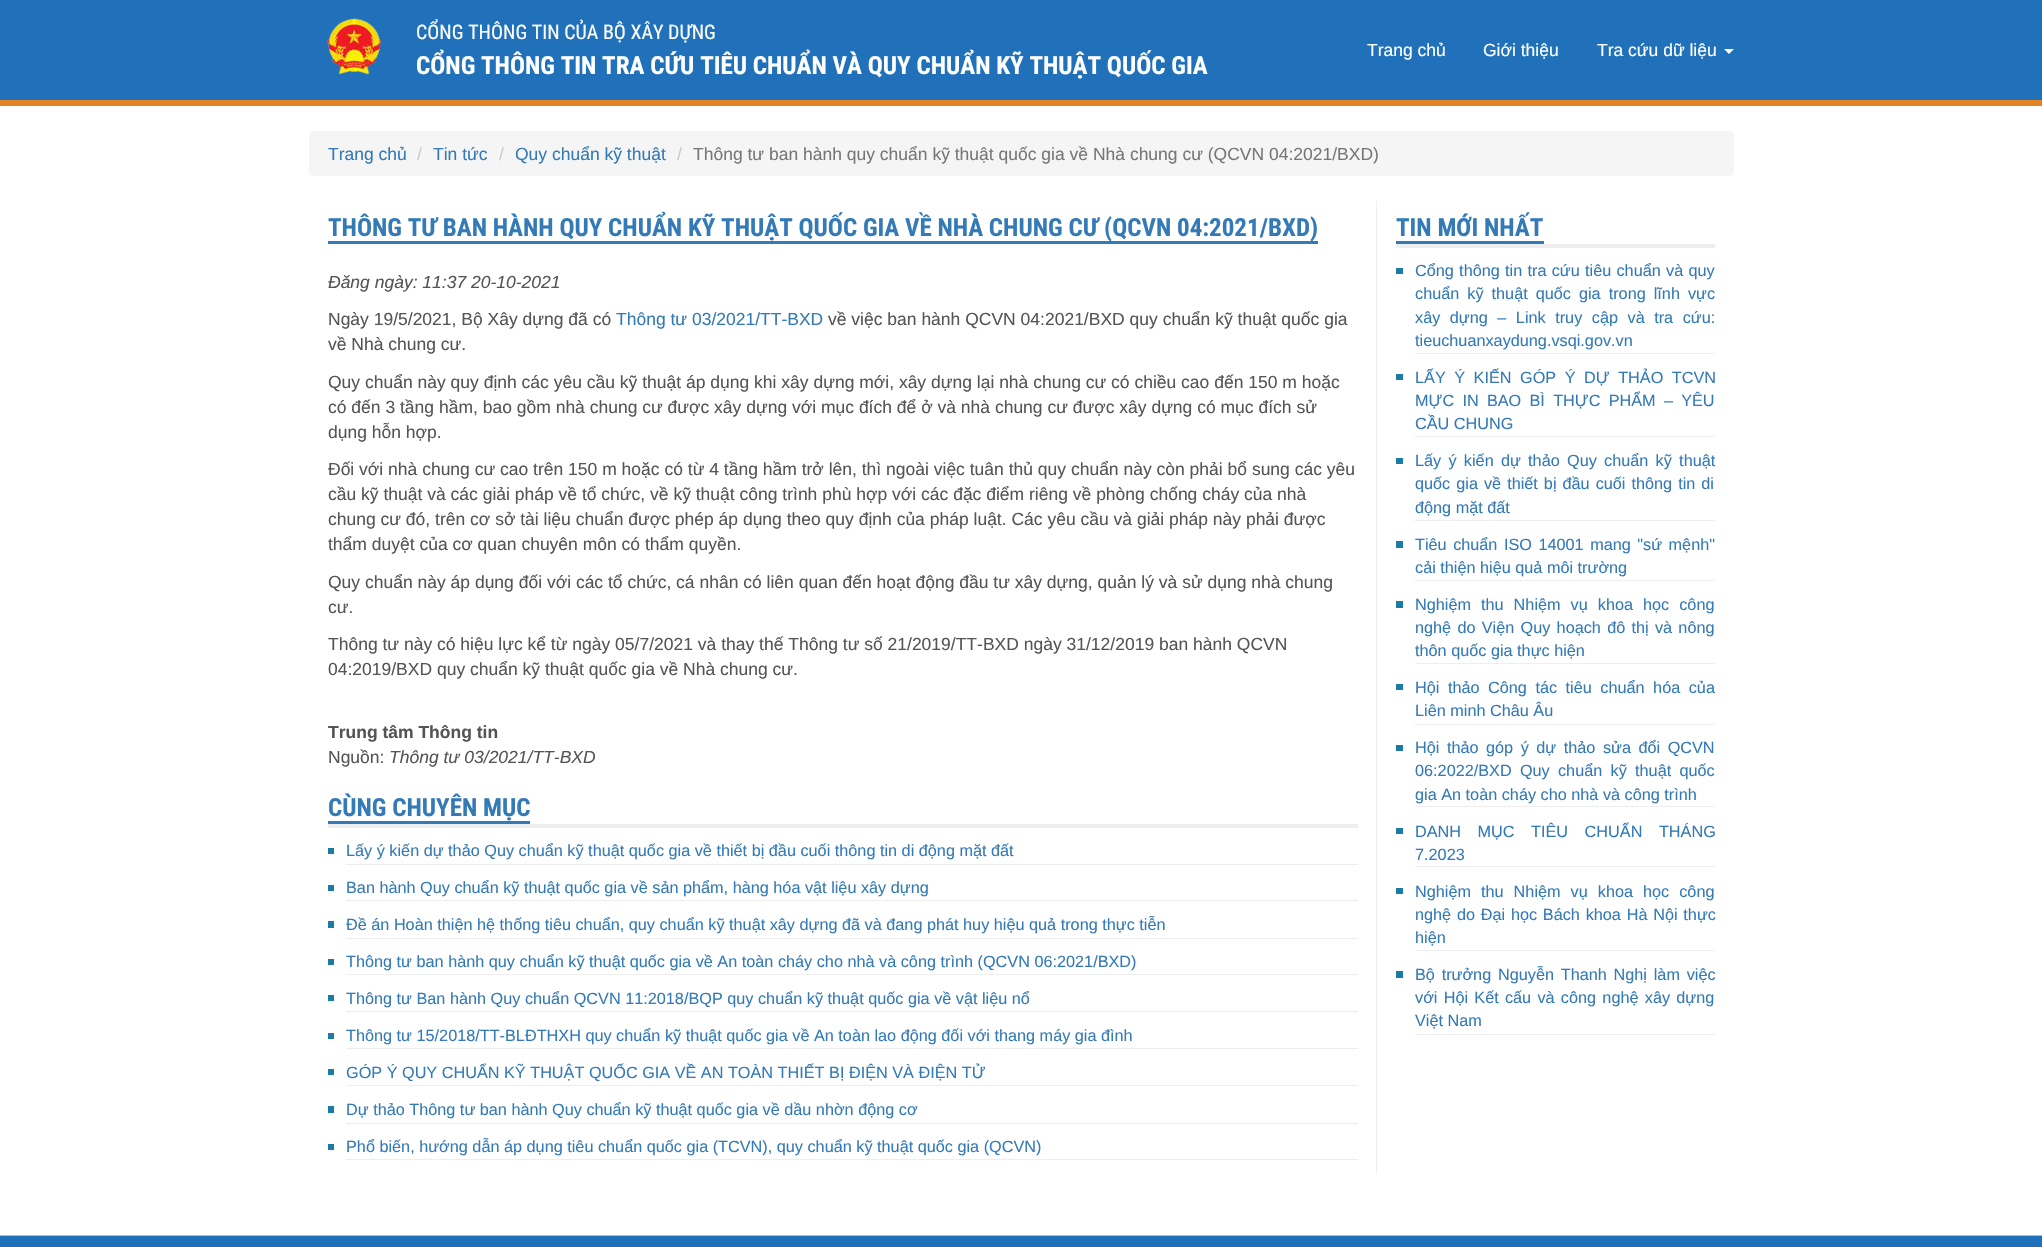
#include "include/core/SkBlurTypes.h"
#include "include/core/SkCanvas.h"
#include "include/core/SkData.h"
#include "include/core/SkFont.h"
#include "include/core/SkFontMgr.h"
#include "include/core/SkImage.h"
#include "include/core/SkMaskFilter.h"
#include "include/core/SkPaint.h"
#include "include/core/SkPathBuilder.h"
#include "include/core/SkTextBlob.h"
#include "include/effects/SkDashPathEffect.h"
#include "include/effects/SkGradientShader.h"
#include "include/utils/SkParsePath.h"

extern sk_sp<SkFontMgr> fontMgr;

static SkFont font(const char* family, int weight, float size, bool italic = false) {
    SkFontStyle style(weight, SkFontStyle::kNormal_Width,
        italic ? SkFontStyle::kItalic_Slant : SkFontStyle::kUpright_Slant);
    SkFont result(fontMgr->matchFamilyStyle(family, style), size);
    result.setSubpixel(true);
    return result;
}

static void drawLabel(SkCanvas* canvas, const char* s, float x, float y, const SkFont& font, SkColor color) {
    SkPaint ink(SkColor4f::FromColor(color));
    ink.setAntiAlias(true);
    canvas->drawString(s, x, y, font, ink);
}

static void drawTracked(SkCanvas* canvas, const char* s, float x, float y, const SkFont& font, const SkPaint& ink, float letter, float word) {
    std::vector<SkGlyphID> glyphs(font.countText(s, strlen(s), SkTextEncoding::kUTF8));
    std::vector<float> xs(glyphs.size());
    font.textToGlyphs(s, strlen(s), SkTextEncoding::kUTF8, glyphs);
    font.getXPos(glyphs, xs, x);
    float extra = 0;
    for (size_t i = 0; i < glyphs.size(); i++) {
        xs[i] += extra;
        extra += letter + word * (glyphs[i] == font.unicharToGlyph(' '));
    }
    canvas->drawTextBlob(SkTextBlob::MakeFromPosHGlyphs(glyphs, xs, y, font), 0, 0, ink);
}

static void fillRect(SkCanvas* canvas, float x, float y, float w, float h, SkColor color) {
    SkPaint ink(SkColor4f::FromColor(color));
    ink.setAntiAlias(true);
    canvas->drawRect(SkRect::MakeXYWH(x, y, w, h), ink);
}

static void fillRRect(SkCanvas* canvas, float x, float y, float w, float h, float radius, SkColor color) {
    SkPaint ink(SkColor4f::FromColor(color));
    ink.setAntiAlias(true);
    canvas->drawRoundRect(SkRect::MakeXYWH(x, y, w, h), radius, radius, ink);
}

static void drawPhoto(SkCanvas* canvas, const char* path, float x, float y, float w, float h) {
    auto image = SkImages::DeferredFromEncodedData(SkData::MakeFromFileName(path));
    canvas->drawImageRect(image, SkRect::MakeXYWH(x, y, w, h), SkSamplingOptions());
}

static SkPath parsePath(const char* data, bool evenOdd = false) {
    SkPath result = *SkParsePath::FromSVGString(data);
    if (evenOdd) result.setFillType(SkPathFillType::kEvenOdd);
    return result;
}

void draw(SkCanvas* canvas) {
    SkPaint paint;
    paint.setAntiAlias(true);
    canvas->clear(0xFFFFFFFF);
    fillRect(canvas, 0, 0, 2042, 100, 0xFF2071B9);
    fillRect(canvas, 0, 100, 2042, 6, 0xFFE28326);
    drawPhoto(canvas, "assets/img1.png", 327, 18, 55, 57);
    SkFont font1 = font("Roboto Condensed", 400, 20);
    drawLabel(canvas, "CỔNG THÔNG TIN CỦA BỘ XÂY DỰNG", 416, 39, font1, 0xFFFFFFFF);
    SkFont font2 = font("Roboto Condensed", 700, 25);
    drawLabel(canvas, "CỔNG THÔNG TIN TRA CỨU TIÊU CHUẨN VÀ QUY CHUẨN KỸ THUẬT QUỐC GIA", 416, 74, font2, 0xFFFFFFFF);
    SkFont font3 = font("Liberation Sans", 400, 17.5f);
    drawLabel(canvas, "Trang chủ", 1367, 56, font3, 0xFFFFFFFF);
    drawLabel(canvas, "Giới thiệu", 1483, 56, font3, 0xFFFFFFFF);
    drawLabel(canvas, "Tra cứu dữ liệu", 1597, 56, font3, 0xFFFFFFFF);
    paint.setColor(0xFFFFFFFF);
    canvas->drawPath(parsePath("M1724 49H1734L1729 54Z"), paint);
    fillRRect(canvas, 309, 131, 1425, 45, 5, 0xFFF5F5F5);
    drawLabel(canvas, "Trang chủ", 328, 160, font3, 0xFF337AB7);
    drawLabel(canvas, "/", 417, 160, font3, 0xFFCCCCCC);
    drawLabel(canvas, "Tin tức", 433, 160, font3, 0xFF337AB7);
    drawLabel(canvas, "/", 499, 160, font3, 0xFFCCCCCC);
    drawLabel(canvas, "Quy chuẩn kỹ thuật", 515, 160, font3, 0xFF337AB7);
    drawLabel(canvas, "/", 677, 160, font3, 0xFFCCCCCC);
    drawLabel(canvas, "Thông tư ban hành quy chuẩn kỹ thuật quốc gia về Nhà chung cư (QCVN 04:2021/BXD)", 693, 160, font3, 0xFF777777);
    fillRect(canvas, 1376, 201, 1, 972, 0xFFEEEEEE);
    fillRect(canvas, 328, 241, 990, 3, 0xFF337AB7);
    drawLabel(canvas, "THÔNG TƯ BAN HÀNH QUY CHUẨN KỸ THUẬT QUỐC GIA VỀ NHÀ CHUNG CƯ (QCVN 04:2021/BXD)", 328, 236, font2, 0xFF337AB7);
    SkFont font4 = font("Liberation Sans", 400, 17.5f, true);
    drawLabel(canvas, "Đăng ngày: 11:37 20-10-2021", 328, 288, font4, 0xFF555555);
    drawLabel(canvas, "Ngày 19/5/2021, Bộ Xây dựng đã có", 328, 325, font3, 0xFF555555);
    drawLabel(canvas, "Thông tư 03/2021/TT-BXD", 616, 325, font3, 0xFF337AB7);
    drawLabel(canvas, "về việc ban hành QCVN 04:2021/BXD quy chuẩn kỹ thuật quốc gia", 828, 325, font3, 0xFF555555);
    drawLabel(canvas, "về Nhà chung cư.", 328, 350, font3, 0xFF555555);
    drawLabel(canvas, "Quy chuẩn này quy định các yêu cầu kỹ thuật áp dụng khi xây dựng mới, xây dựng lại nhà chung cư có chiều cao đến 150 m hoặc", 328, 388, font3, 0xFF555555);
    drawLabel(canvas, "có đến 3 tầng hầm, bao gồm nhà chung cư được xây dựng với mục đích để ở và nhà chung cư được xây dựng có mục đích sử", 328, 413, font3, 0xFF555555);
    drawLabel(canvas, "dụng hỗn hợp.", 328, 438, font3, 0xFF555555);
    drawLabel(canvas, "Đối với nhà chung cư cao trên 150 m hoặc có từ 4 tầng hầm trở lên, thì ngoài việc tuân thủ quy chuẩn này còn phải bổ sung các yêu", 328, 475, font3, 0xFF555555);
    drawLabel(canvas, "cầu kỹ thuật và các giải pháp về tổ chức, về kỹ thuật công trình phù hợp với các đặc điểm riêng về phòng chống cháy của nhà", 328, 500, font3, 0xFF555555);
    drawLabel(canvas, "chung cư đó, trên cơ sở tài liệu chuẩn được phép áp dụng theo quy định của pháp luật. Các yêu cầu và giải pháp này phải được", 328, 525, font3, 0xFF555555);
    drawLabel(canvas, "thẩm duyệt của cơ quan chuyên môn có thẩm quyền.", 328, 550, font3, 0xFF555555);
    drawLabel(canvas, "Quy chuẩn này áp dụng đối với các tổ chức, cá nhân có liên quan đến hoạt động đầu tư xây dựng, quản lý và sử dụng nhà chung", 328, 588, font3, 0xFF555555);
    drawLabel(canvas, "cư.", 328, 613, font3, 0xFF555555);
    drawLabel(canvas, "Thông tư này có hiệu lực kể từ ngày 05/7/2021 và thay thế Thông tư số 21/2019/TT-BXD ngày 31/12/2019 ban hành QCVN", 328, 650, font3, 0xFF555555);
    drawLabel(canvas, "04:2019/BXD quy chuẩn kỹ thuật quốc gia về Nhà chung cư.", 328, 675, font3, 0xFF555555);
    SkFont font5 = font("Liberation Sans", 700, 17.5f);
    drawLabel(canvas, "Trung tâm Thông tin", 328, 738, font5, 0xFF555555);
    drawLabel(canvas, "Nguồn:", 328, 763, font3, 0xFF555555);
    drawLabel(canvas, "Thông tư 03/2021/TT-BXD", 389, 763, font4, 0xFF555555);
    fillRect(canvas, 328, 821, 202, 3, 0xFF337AB7);
    drawLabel(canvas, "CÙNG CHUYÊN MỤC", 328, 816, font2, 0xFF337AB7);
    fillRect(canvas, 328, 824, 1030, 4, 0xFFEEEEEE);
    fillRect(canvas, 346, 864, 1012, 1, 0xFFEEEEEE);
    fillRect(canvas, 328, 848, 6, 6, 0xFF1A7CA5);
    SkFont font6 = font("Liberation Sans", 400, 16.25f);
    drawLabel(canvas, "Lấy ý kiến dự thảo Quy chuẩn kỹ thuật quốc gia về thiết bị đầu cuối thông tin di động mặt đất", 346, 856, font6, 0xFF337AB7);
    fillRect(canvas, 346, 900, 1012, 1, 0xFFEEEEEE);
    fillRect(canvas, 328, 885, 6, 6, 0xFF1A7CA5);
    drawLabel(canvas, "Ban hành Quy chuẩn kỹ thuật quốc gia về sản phẩm, hàng hóa vật liệu xây dựng", 346, 893, font6, 0xFF337AB7);
    fillRect(canvas, 346, 938, 1012, 1, 0xFFEEEEEE);
    fillRect(canvas, 328, 921, 6, 7, 0xFF1A7CA5);
    drawLabel(canvas, "Đề án Hoàn thiện hệ thống tiêu chuẩn, quy chuẩn kỹ thuật xây dựng đã và đang phát huy hiệu quả trong thực tiễn", 346, 930, font6, 0xFF337AB7);
    fillRect(canvas, 346, 974, 1012, 1, 0xFFEEEEEE);
    fillRect(canvas, 328, 959, 6, 6, 0xFF1A7CA5);
    drawLabel(canvas, "Thông tư ban hành quy chuẩn kỹ thuật quốc gia về An toàn cháy cho nhà và công trình (QCVN 06:2021/BXD)", 346, 967, font6, 0xFF337AB7);
    fillRect(canvas, 346, 1011, 1012, 1, 0xFFEEEEEE);
    fillRect(canvas, 328, 995, 6, 6, 0xFF1A7CA5);
    drawLabel(canvas, "Thông tư Ban hành Quy chuẩn QCVN 11:2018/BQP quy chuẩn kỹ thuật quốc gia về vật liệu nổ", 346, 1004, font6, 0xFF337AB7);
    fillRect(canvas, 346, 1048, 1012, 1, 0xFFEEEEEE);
    fillRect(canvas, 328, 1033, 6, 6, 0xFF1A7CA5);
    drawLabel(canvas, "Thông tư 15/2018/TT-BLĐTHXH quy chuẩn kỹ thuật quốc gia về An toàn lao động đối với thang máy gia đình", 346, 1041, font6, 0xFF337AB7);
    fillRect(canvas, 346, 1085, 1012, 1, 0xFFEEEEEE);
    fillRect(canvas, 328, 1069, 6, 6, 0xFF1A7CA5);
    drawLabel(canvas, "GÓP Ý QUY CHUẨN KỸ THUẬT QUỐC GIA VỀ AN TOÀN THIẾT BỊ ĐIỆN VÀ ĐIỆN TỬ", 346, 1078, font6, 0xFF337AB7);
    fillRect(canvas, 346, 1123, 1012, 1, 0xFFEEEEEE);
    fillRect(canvas, 328, 1106, 6, 7, 0xFF1A7CA5);
    drawLabel(canvas, "Dự thảo Thông tư ban hành Quy chuẩn kỹ thuật quốc gia về dầu nhờn động cơ", 346, 1115, font6, 0xFF337AB7);
    fillRect(canvas, 346, 1159, 1012, 1, 0xFFEEEEEE);
    fillRect(canvas, 328, 1144, 6, 6, 0xFF1A7CA5);
    drawLabel(canvas, "Phổ biến, hướng dẫn áp dụng tiêu chuẩn quốc gia (TCVN), quy chuẩn kỹ thuật quốc gia (QCVN)", 346, 1152, font6, 0xFF337AB7);
    fillRect(canvas, 1396, 241, 148, 3, 0xFF337AB7);
    drawLabel(canvas, "TIN MỚI NHẤT", 1396, 236, font2, 0xFF337AB7);
    fillRect(canvas, 1396, 244, 319, 4, 0xFFEEEEEE);
    fillRect(canvas, 1415, 353, 300, 1, 0xFFEEEEEE);
    fillRect(canvas, 1396, 268, 7, 6, 0xFF1A7CA5);
    paint.setColor(0xFF337AB7);
    drawTracked(canvas, "Cổng thông tin tra cứu tiêu chuẩn và quy", 1415, 276, font6, paint, 0, 0.75f);
    drawTracked(canvas, "chuẩn kỹ thuật quốc gia trong lĩnh vực", 1415, 299, font6, paint, 0, 3.5f);
    drawTracked(canvas, "xây dựng – Link truy cập và tra cứu:", 1415, 323, font6, paint, 0, 5);
    drawLabel(canvas, "tieuchuanxaydung.vsqi.gov.vn", 1415, 346, font6, 0xFF337AB7);
    fillRect(canvas, 1415, 436, 300, 1, 0xFFEEEEEE);
    fillRect(canvas, 1396, 374, 7, 6, 0xFF1A7CA5);
    drawTracked(canvas, "LẤY Ý KIẾN GÓP Ý DỰ THẢO TCVN", 1415, 383, font6, paint, 0, 4);
    drawTracked(canvas, "MỰC IN BAO BÌ THỰC PHẨM – YÊU", 1415, 406, font6, paint, 0, 3.75f);
    drawLabel(canvas, "CẦU CHUNG", 1415, 429, font6, 0xFF337AB7);
    fillRect(canvas, 1415, 520, 300, 1, 0xFFEEEEEE);
    fillRect(canvas, 1396, 458, 7, 6, 0xFF1A7CA5);
    drawTracked(canvas, "Lấy ý kiến dự thảo Quy chuẩn kỹ thuật", 1415, 466, font6, paint, 0, 2.75f);
    drawTracked(canvas, "quốc gia về thiết bị đầu cuối thông tin di", 1415, 489, font6, paint, 0, 1.5f);
    drawLabel(canvas, "động mặt đất", 1415, 513, font6, 0xFF337AB7);
    fillRect(canvas, 1415, 580, 300, 1, 0xFFEEEEEE);
    fillRect(canvas, 1396, 541, 7, 7, 0xFF1A7CA5);
    drawTracked(canvas, "Tiêu chuẩn ISO 14001 mang \"sứ mệnh\"", 1415, 550, font6, paint, 0, 2);
    drawLabel(canvas, "cải thiện hiệu quả môi trường", 1415, 573, font6, 0xFF337AB7);
    fillRect(canvas, 1415, 663, 300, 1, 0xFFEEEEEE);
    fillRect(canvas, 1396, 601, 7, 7, 0xFF1A7CA5);
    drawTracked(canvas, "Nghiệm thu Nhiệm vụ khoa học công", 1415, 610, font6, paint, 0, 5.5f);
    drawTracked(canvas, "nghệ do Viện Quy hoạch đô thị và nông", 1415, 633, font6, paint, 0, 1.75f);
    drawLabel(canvas, "thôn quốc gia thực hiện", 1415, 656, font6, 0xFF337AB7);
    fillRect(canvas, 1415, 724, 300, 1, 0xFFEEEEEE);
    fillRect(canvas, 1396, 684, 7, 6, 0xFF1A7CA5);
    drawTracked(canvas, "Hội thảo Công tác tiêu chuẩn hóa của", 1415, 693, font6, paint, 0, 4);
    drawLabel(canvas, "Liên minh Châu Âu", 1415, 716, font6, 0xFF337AB7);
    fillRect(canvas, 1415, 806, 300, 1, 0xFFEEEEEE);
    fillRect(canvas, 1396, 745, 7, 6, 0xFF1A7CA5);
    drawTracked(canvas, "Hội thảo góp ý dự thảo sửa đổi QCVN", 1415, 753, font6, paint, 0, 3);
    drawTracked(canvas, "06:2022/BXD Quy chuẩn kỹ thuật quốc", 1415, 776, font6, paint, 0, 3.75f);
    drawLabel(canvas, "gia An toàn cháy cho nhà và công trình", 1415, 800, font6, 0xFF337AB7);
    fillRect(canvas, 1415, 866, 300, 1, 0xFFEEEEEE);
    fillRect(canvas, 1396, 828, 7, 6, 0xFF1A7CA5);
    drawTracked(canvas, "DANH MỤC TIÊU CHUẨN THÁNG", 1415, 837, font6, paint, 0, 12);
    drawLabel(canvas, "7.2023", 1415, 860, font6, 0xFF337AB7);
    fillRect(canvas, 1415, 950, 300, 1, 0xFFEEEEEE);
    fillRect(canvas, 1396, 888, 7, 6, 0xFF1A7CA5);
    drawTracked(canvas, "Nghiệm thu Nhiệm vụ khoa học công", 1415, 897, font6, paint, 0, 5.5f);
    drawTracked(canvas, "nghệ do Đại học Bách khoa Hà Nội thực", 1415, 920, font6, paint, 0, 1.25f);
    drawLabel(canvas, "hiện", 1415, 943, font6, 0xFF337AB7);
    fillRect(canvas, 1415, 1034, 300, 1, 0xFFEEEEEE);
    fillRect(canvas, 1396, 971, 7, 7, 0xFF1A7CA5);
    drawTracked(canvas, "Bộ trưởng Nguyễn Thanh Nghị làm việc", 1415, 980, font6, paint, 0, 2.25f);
    drawTracked(canvas, "với Hội Kết cấu và công nghệ xây dựng", 1415, 1003, font6, paint, 0, 1.75f);
    drawLabel(canvas, "Việt Nam", 1415, 1026, font6, 0xFF337AB7);
    fillRect(canvas, 0, 1236, 2042, 11, 0xFF2071B9);
    fillRect(canvas, 0, 1235, 2042, 1, 0xFFBBBBBB);
}
